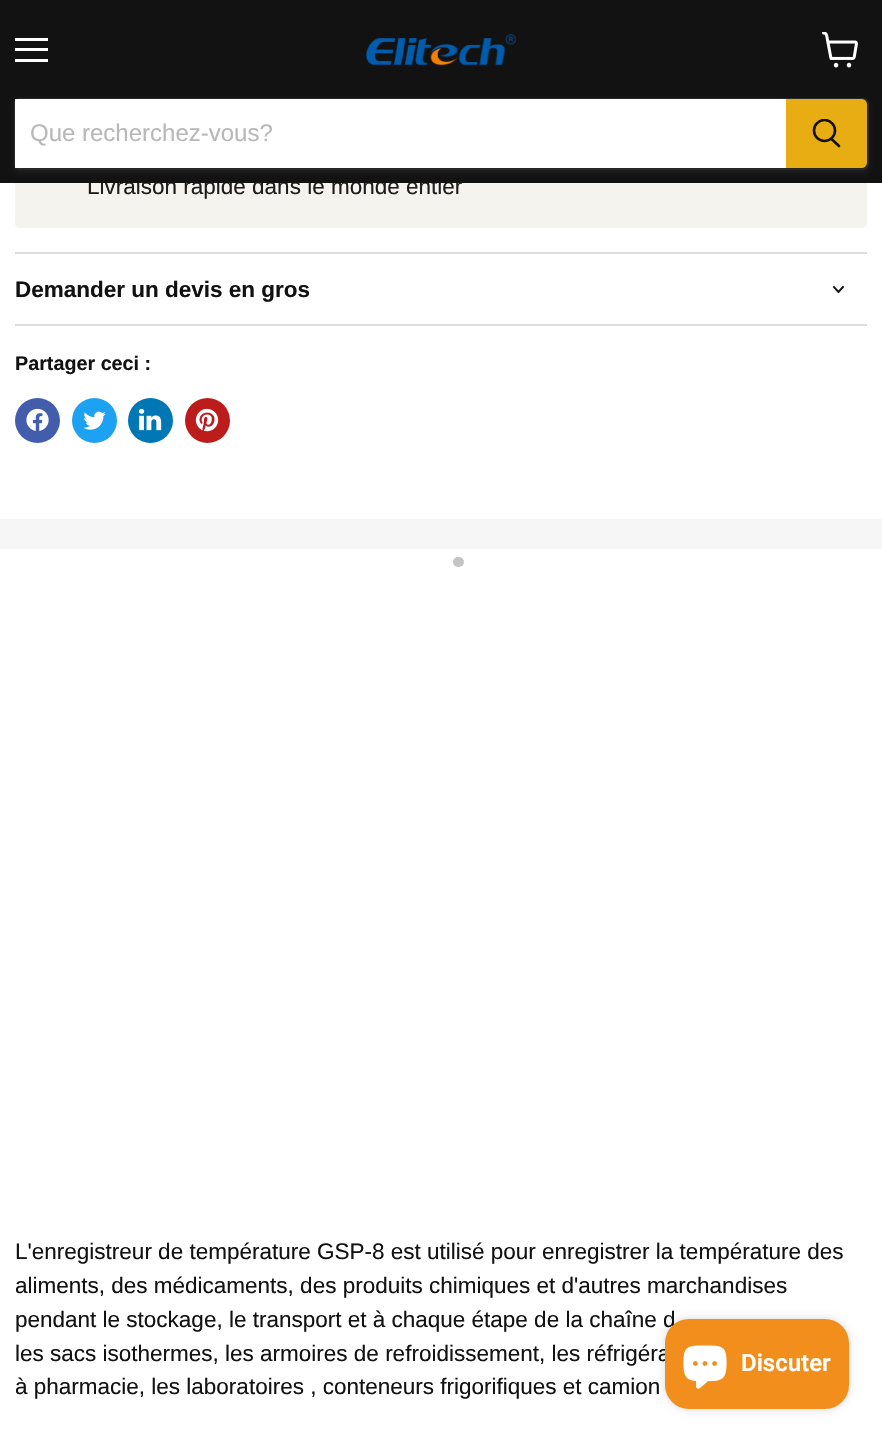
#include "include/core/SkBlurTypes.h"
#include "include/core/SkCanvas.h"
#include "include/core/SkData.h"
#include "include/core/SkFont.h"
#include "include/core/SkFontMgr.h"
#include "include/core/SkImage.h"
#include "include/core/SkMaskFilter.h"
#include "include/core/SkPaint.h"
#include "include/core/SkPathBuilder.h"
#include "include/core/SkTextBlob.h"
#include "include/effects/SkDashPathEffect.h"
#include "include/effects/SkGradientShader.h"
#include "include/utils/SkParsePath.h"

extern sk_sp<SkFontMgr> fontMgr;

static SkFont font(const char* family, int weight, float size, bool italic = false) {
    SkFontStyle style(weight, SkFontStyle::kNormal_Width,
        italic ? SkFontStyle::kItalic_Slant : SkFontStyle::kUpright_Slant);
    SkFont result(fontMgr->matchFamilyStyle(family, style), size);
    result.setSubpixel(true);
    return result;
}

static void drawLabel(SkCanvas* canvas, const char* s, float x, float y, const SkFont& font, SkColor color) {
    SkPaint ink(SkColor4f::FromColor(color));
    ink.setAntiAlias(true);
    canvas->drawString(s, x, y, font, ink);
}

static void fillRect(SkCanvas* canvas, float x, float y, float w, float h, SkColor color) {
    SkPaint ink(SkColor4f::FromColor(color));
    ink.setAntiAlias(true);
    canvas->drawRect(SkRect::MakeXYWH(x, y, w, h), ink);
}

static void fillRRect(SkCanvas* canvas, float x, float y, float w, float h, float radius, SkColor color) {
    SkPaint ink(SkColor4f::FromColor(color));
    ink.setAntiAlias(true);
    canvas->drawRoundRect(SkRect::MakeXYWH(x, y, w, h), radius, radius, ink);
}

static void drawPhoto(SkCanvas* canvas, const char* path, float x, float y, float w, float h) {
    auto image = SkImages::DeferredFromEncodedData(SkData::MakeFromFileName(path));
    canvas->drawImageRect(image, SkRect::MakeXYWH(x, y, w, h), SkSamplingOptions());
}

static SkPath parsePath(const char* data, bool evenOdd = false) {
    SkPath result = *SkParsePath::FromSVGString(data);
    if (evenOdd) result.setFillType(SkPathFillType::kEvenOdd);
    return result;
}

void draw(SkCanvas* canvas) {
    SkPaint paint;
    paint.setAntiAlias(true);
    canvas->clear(0xFFFFFFFF);
    fillRRect(canvas, 15, 99, 852, 129, 5, 0xFFF5F3ED);
    SkFont font1 = font("Liberation Sans", 400, 22.5f);
    drawLabel(canvas, "Livraison rapide dans le monde entier", 87, 194, font1, 0xFF1D1D1D);
    fillRect(canvas, 0, 0, 882, 183, 0xFF121212);
    fillRect(canvas, 15, 38, 33, 3, 0xFFFFFFFF);
    fillRect(canvas, 15, 48, 33, 3, 0xFFFFFFFF);
    fillRect(canvas, 15, 59, 33, 3, 0xFFFFFFFF);
    drawPhoto(canvas, "assets/img1.png", 822, 32, 36, 36);
    drawPhoto(canvas, "assets/img2.png", 366, 34, 150, 32);
    canvas->save();
    canvas->clipPath(parsePath("M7 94H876V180H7ZM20 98H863C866.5 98 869 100.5 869 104V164C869 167.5 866.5 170 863 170H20C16.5 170 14 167.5 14 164V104C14 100.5 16.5 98 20 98Z", true), true);
    paint.setColor(0x1C808080);
    paint.setMaskFilter(SkMaskFilter::MakeBlur(kNormal_SkBlurStyle, 2));
    canvas->drawRoundRect(SkRect::MakeXYWH(14, 101, 855, 72), 6, 6, paint);
    paint.setMaskFilter(nullptr);
    canvas->restore();
    paint.setStroke(true);
    paint.setStrokeWidth(2);
    paint.setColor(0x33808080);
    canvas->drawRoundRect(SkRect::MakeXYWH(15, 99, 853, 70), 5, 5, paint);
    fillRect(canvas, 15, 99, 771, 69, 0xFFFFFFFF);
    SkFont font2 = font("Liberation Sans", 400, 24);
    drawLabel(canvas, "Que recherchez-vous?", 30, 141, font2, 0xFFB8B8B8);
    paint.setStroke(false);
    paint.setColor(0xFFE9AD14);
    canvas->drawPath(parsePath("M787 100H862C864 100 866 102 866 104V163C866 165 864 167 862 167H787Z"), paint);
    paint.setStroke(true);
    canvas->drawPath(parsePath("M787 100H862C864 100 866 102 866 104V163C866 165 864 167 862 167H787Z"), paint);
    paint.setStrokeWidth(2.6f);
    paint.setStrokeCap(SkPaint::kRound_Cap);
    paint.setColor(0xFF121212);
    canvas->drawPath(parsePath("M839 146L831.5 139"), paint);
    canvas->save();
    canvas->clipRect(SkRect::MakeXYWH(812, 119, 30, 31));
    paint.setStrokeCap(SkPaint::kButt_Cap);
    canvas->drawCircle(824.5f, 130.5f, 10.5f, paint);
    canvas->restore();
    fillRect(canvas, 15, 252, 852, 2, 0xFFDDDDDD);
    fillRect(canvas, 15, 324, 852, 2, 0xFFDDDDDD);
    SkFont font3 = font("Liberation Sans", 700, 22.5f);
    drawLabel(canvas, "Demander un devis en gros", 15, 297, font3, 0xFF121212);
    paint.setStrokeWidth(1.9f);
    paint.setStrokeCap(SkPaint::kSquare_Cap);
    canvas->drawPath(parsePath("M838.5 292L843 287M838.5 292L834 287"), paint);
    SkFont font4 = font("Liberation Sans", 700, 19.75f);
    drawLabel(canvas, "Partager ceci :", 15, 370, font4, 0xFF121212);
    paint.setStroke(false);
    paint.setColor(0xFF425DAB);
    canvas->drawCircle(37.5f, 420.5f, 22.5f, paint);
    drawPhoto(canvas, "assets/img3.png", 26, 408, 23, 23);
    paint.setColor(0xFF1DA1F2);
    canvas->drawCircle(94.5f, 420.5f, 22.5f, paint);
    drawPhoto(canvas, "assets/img4.png", 83, 411, 23, 19);
    paint.setColor(0xFF0077B5);
    canvas->drawCircle(150.5f, 420.5f, 22.5f, paint);
    drawPhoto(canvas, "assets/img5.png", 138, 408, 24, 23);
    paint.setColor(0xFFBD1C1C);
    canvas->drawCircle(207.5f, 420.5f, 22.5f, paint);
    drawPhoto(canvas, "assets/img6.png", 195, 408, 24, 24);
    fillRect(canvas, 0, 519, 882, 30, 0xFFF6F6F6);
    fillRRect(canvas, 453, 557, 11, 10, 5, 0xFFC4C4C4);
    drawLabel(canvas, "L'enregistreur de température GSP-8 est utilisé pour enregistrer la température des", 15, 1259, font1, 0xFF121212);
    drawLabel(canvas, "aliments, des médicaments, des produits chimiques et d'autres marchandises", 15, 1293, font1, 0xFF121212);
    drawLabel(canvas, "pendant le stockage, le transport et à chaque étape de la chaîne d", 15, 1327, font1, 0xFF121212);
    drawLabel(canvas, "les sacs isothermes, les armoires de refroidissement, les réfrigéra", 15, 1361, font1, 0xFF121212);
    drawLabel(canvas, "à pharmacie, les laboratoires , conteneurs frigorifiques et camion", 15, 1394, font1, 0xFF121212);
    paint.setColor(0x26000000);
    paint.setMaskFilter(SkMaskFilter::MakeBlur(kNormal_SkBlurStyle, 4));
    canvas->drawRoundRect(SkRect::MakeXYWH(665, 1319, 184, 90), 24, 24, paint);
    paint.setMaskFilter(nullptr);
    fillRRect(canvas, 665, 1319, 184, 90, 24, 0xFFF18E1C);
    drawPhoto(canvas, "assets/img7.png", 683, 1345, 44, 44);
    SkFont font5 = font("Roboto", 600, 24);
    drawLabel(canvas, "Discuter", 741, 1371, font5, 0xFFFFFFFF);
}
